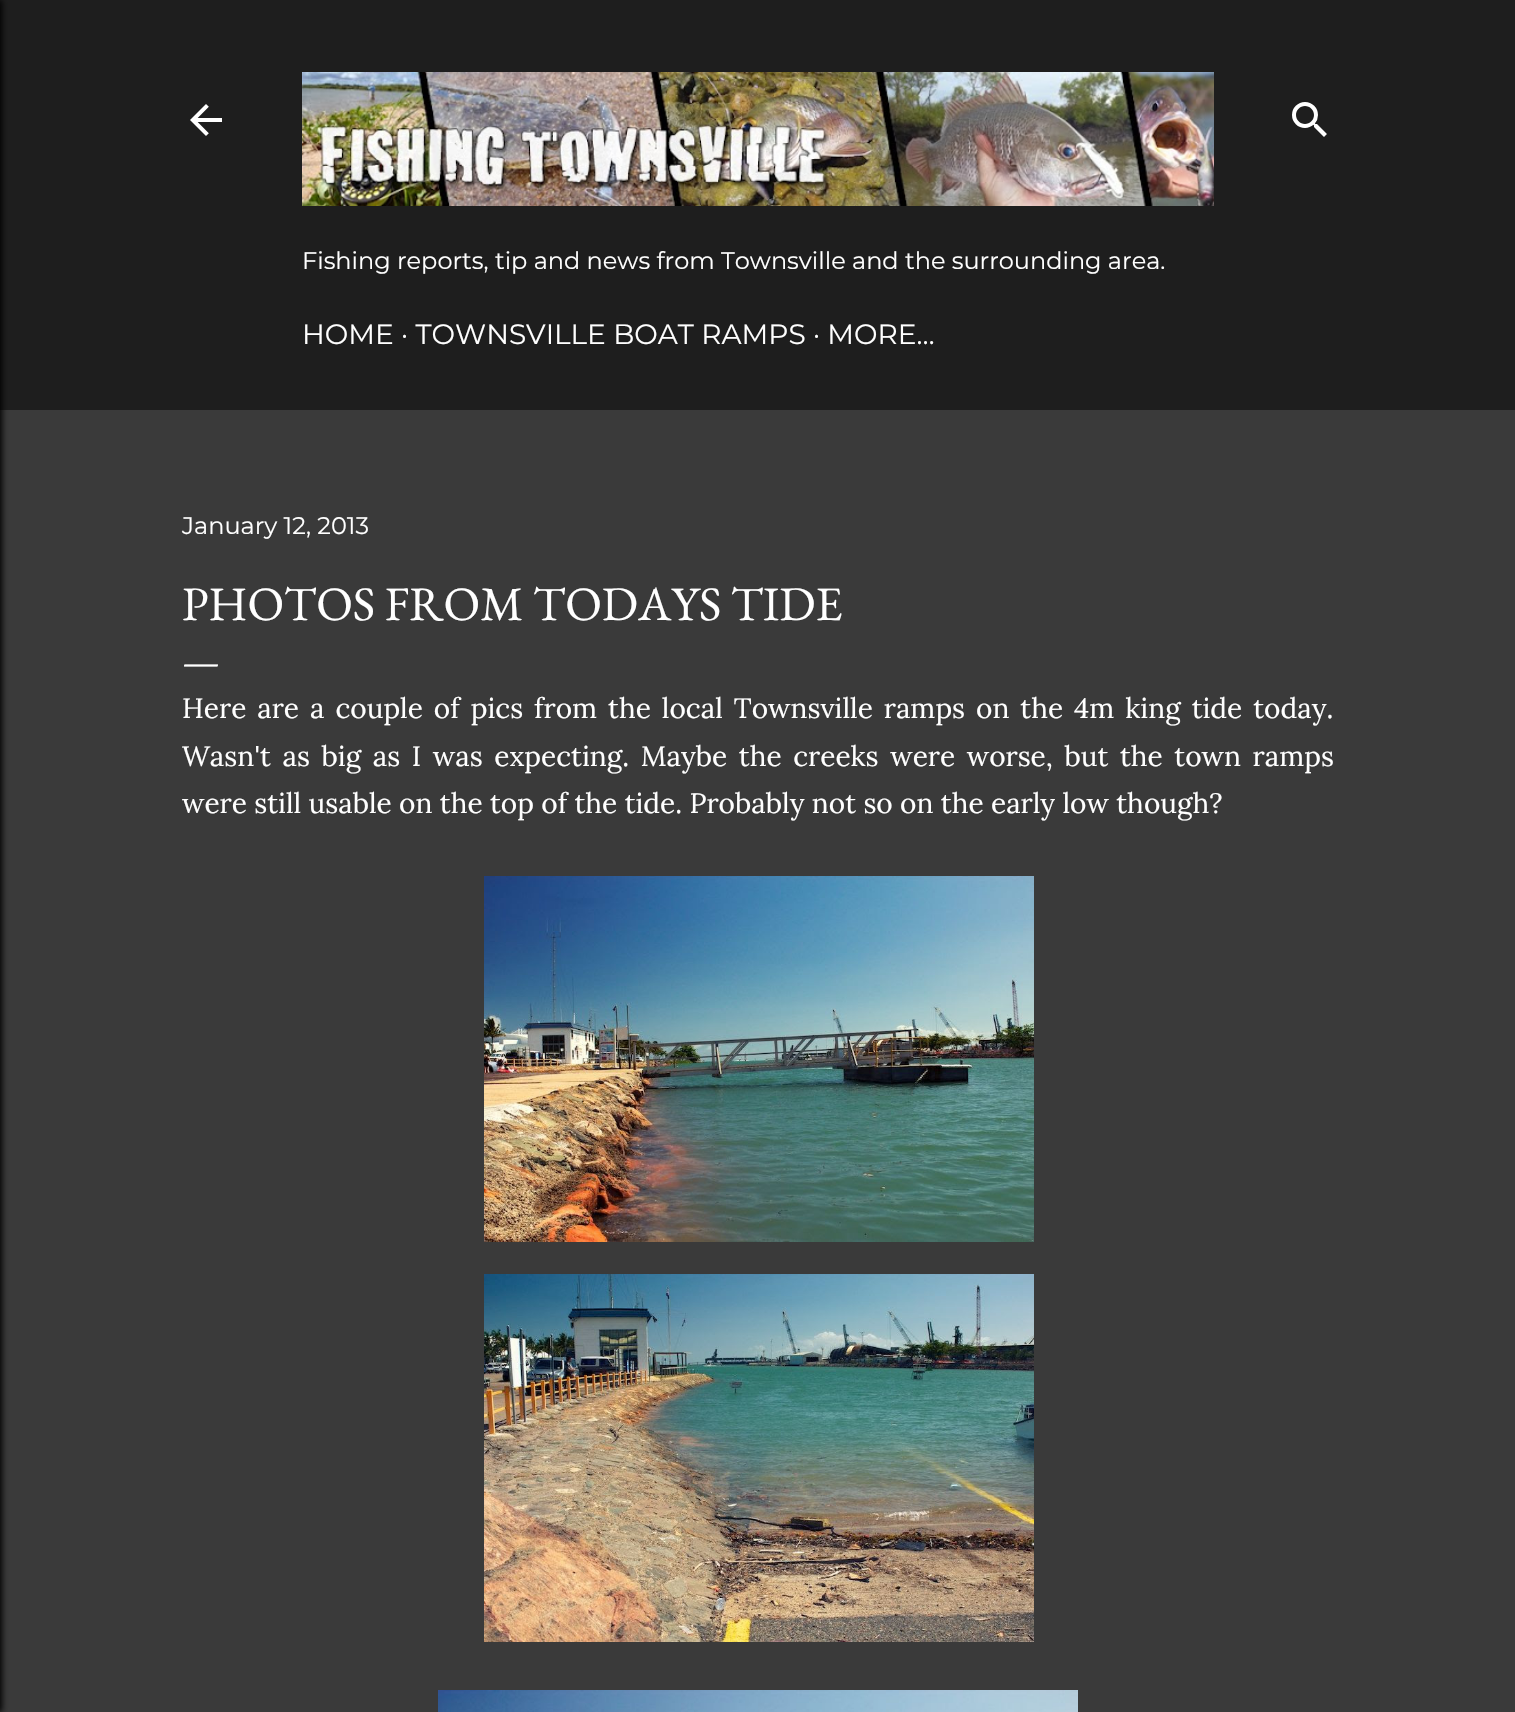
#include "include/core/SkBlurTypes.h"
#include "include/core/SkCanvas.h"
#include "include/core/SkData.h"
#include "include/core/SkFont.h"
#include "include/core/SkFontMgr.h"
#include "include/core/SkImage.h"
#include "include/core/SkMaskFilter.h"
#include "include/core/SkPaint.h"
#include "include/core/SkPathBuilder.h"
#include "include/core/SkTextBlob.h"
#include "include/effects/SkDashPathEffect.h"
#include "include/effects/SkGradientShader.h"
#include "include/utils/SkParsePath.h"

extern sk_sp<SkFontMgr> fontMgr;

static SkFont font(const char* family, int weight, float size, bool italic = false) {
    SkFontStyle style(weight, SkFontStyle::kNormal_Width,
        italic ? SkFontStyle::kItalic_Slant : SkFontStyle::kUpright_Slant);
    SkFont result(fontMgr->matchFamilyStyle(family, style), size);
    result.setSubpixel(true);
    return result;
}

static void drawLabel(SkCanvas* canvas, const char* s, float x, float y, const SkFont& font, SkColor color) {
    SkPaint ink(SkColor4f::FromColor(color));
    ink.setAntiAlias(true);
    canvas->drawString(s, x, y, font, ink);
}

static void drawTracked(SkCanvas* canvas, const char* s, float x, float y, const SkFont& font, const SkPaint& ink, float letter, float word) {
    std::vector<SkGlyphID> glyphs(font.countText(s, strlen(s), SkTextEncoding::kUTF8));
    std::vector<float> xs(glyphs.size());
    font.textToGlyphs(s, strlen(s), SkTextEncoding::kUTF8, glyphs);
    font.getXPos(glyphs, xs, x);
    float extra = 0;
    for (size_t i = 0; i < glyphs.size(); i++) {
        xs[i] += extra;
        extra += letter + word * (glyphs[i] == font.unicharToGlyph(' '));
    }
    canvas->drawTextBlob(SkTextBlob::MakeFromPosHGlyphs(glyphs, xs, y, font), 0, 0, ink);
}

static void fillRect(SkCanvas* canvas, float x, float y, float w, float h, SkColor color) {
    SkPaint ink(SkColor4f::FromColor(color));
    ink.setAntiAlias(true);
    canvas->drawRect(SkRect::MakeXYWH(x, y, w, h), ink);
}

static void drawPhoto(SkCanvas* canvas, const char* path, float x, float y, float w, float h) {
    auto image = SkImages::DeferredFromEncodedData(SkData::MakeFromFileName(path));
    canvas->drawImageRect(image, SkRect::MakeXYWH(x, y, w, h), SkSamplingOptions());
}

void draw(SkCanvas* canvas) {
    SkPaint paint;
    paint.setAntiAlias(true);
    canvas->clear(0xFF3A3A3A);
    fillRect(canvas, 0, 0, 1515, 410, 0xFF1E1E1E);
    paint.setColor(0xFF000000);
    paint.setMaskFilter(SkMaskFilter::MakeBlur(kNormal_SkBlurStyle, 3));
    canvas->drawRect(SkRect::MakeXYWH(-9, 0, 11, 1712), paint);
    paint.setMaskFilter(nullptr);
    drawPhoto(canvas, "assets/img1.png", 190, 104, 32, 32);
    drawPhoto(canvas, "assets/img2.png", 1292, 102, 35, 35);
    drawPhoto(canvas, "assets/img3.png", 302, 72, 912, 134);
    SkFont font1 = font("Montserrat", 400, 24);
    drawLabel(canvas, "Fishing reports, tip and news from Townsville and the surrounding area.", 302, 269, font1, 0xFFFFFFFF);
    SkFont font2 = font("Montserrat", 400, 28);
    drawLabel(canvas, "HOME · TOWNSVILLE BOAT RAMPS · MORE…", 302, 344, font2, 0xFFFFFFFF);
    drawLabel(canvas, "January 12, 2013", 182, 534, font1, 0xFFFFFFFF);
    SkFont font3 = font("EB Garamond", 400, 48);
    drawLabel(canvas, "PHOTOS FROM TODAYS TIDE", 182, 620, font3, 0xFFFFFFFF);
    SkFont font4 = font("EB Garamond", 400, 40);
    drawLabel(canvas, "—", 182, 674, font4, 0xFFFFFFFF);
    SkFont font5 = font("Lora", 400, 28);
    paint.setColor(0xFFFFFFFF);
    drawTracked(canvas, "Here are a couple of pics from the local Townsville ramps on the 4m king tide today.", 182, 718, font5, paint, 0, 3.6f);
    drawTracked(canvas, "Wasn't as big as I was expecting. Maybe the creeks were worse, but the town ramps", 182, 766, font5, paint, 0, 4.25f);
    drawLabel(canvas, "were still usable on the top of the tide. Probably not so on the early low though?", 182, 813, font5, 0xFFFFFFFF);
    drawPhoto(canvas, "assets/img4.png", 484, 876, 550, 366);
    drawPhoto(canvas, "assets/img5.png", 484, 1274, 550, 368);
    drawPhoto(canvas, "assets/img6.png", 438, 1690, 640, 22);
}
